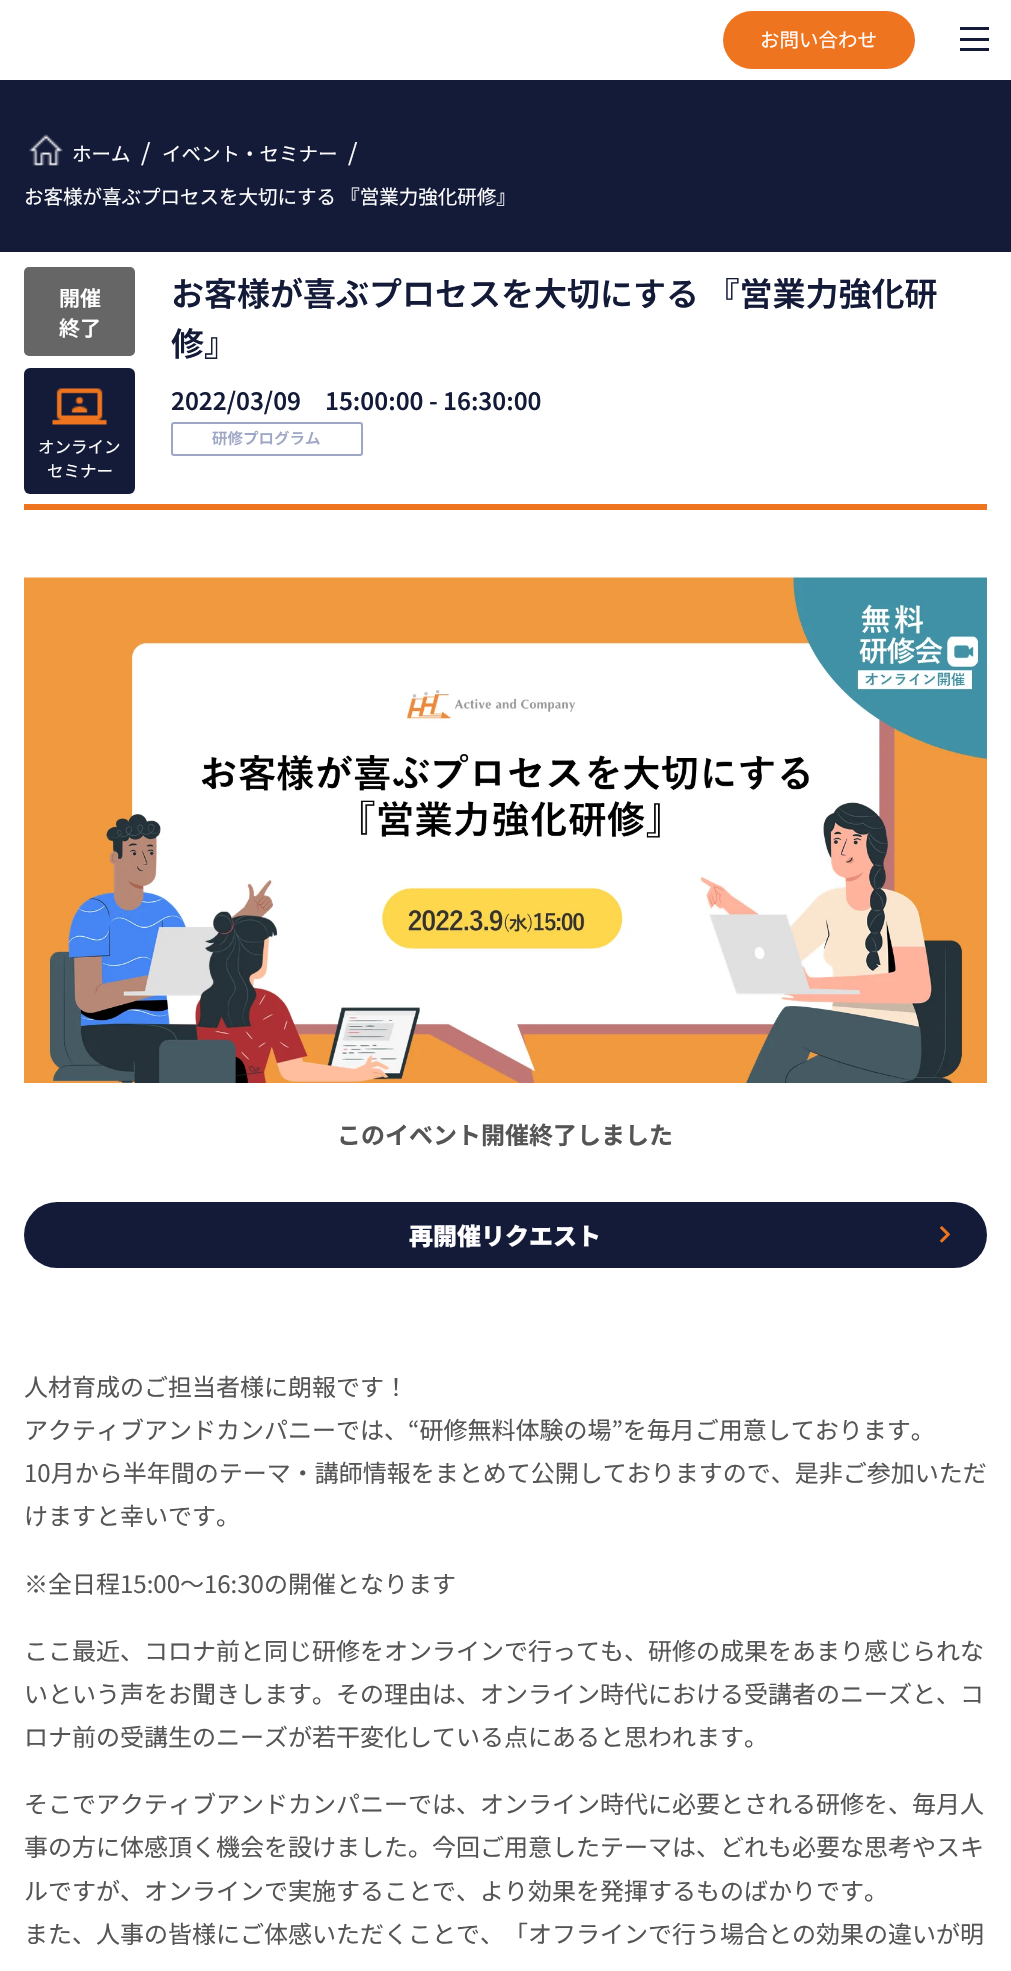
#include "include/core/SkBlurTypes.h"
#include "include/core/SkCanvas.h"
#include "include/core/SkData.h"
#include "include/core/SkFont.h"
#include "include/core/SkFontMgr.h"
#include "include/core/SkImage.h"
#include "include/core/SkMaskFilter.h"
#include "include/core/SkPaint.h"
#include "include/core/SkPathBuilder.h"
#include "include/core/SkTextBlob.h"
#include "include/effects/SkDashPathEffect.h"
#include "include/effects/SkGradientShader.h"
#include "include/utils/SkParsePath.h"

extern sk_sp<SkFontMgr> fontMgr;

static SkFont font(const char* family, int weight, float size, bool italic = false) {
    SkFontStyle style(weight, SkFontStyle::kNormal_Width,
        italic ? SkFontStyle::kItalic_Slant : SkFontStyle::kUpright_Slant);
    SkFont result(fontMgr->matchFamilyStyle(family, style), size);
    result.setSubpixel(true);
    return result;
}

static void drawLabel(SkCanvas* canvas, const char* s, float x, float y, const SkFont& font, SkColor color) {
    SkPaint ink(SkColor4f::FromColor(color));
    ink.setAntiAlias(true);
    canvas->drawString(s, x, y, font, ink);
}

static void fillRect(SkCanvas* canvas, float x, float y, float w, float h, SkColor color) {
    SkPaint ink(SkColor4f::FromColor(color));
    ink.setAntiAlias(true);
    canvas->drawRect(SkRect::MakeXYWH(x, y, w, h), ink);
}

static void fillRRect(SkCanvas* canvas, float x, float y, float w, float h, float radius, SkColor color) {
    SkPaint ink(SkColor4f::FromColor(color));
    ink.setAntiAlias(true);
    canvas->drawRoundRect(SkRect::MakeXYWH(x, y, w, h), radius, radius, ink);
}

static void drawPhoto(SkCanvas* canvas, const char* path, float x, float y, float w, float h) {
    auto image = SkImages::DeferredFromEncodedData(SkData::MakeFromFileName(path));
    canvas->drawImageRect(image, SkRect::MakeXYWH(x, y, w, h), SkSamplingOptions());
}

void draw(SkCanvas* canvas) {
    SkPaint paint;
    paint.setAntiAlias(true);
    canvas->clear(0xFFFFFFFF);
    fillRRect(canvas, 723, 11, 192, 58, 29, 0xFFEE741F);
    SkFont font1 = font("Noto Sans JP", 400, 19.5f);
    drawLabel(canvas, "お問い合わせ", 760, 47, font1, 0xFFFFFFFF);
    fillRect(canvas, 960, 27, 29, 3, 0xFF141B38);
    fillRect(canvas, 960, 38, 29, 3, 0xFF141B38);
    fillRect(canvas, 960, 48, 29, 3, 0xFF141B38);
    fillRect(canvas, 0, 80, 1011, 172, 0xFF141B38);
    drawPhoto(canvas, "assets/img1.png", 29, 134, 34, 32);
    drawLabel(canvas, "ホーム", 72, 161, font1, 0xFFFFFFFF);
    SkFont font2 = font("Noto Sans JP", 400, 24);
    drawLabel(canvas, "/", 141, 161, font2, 0xFFFFFFFF);
    drawLabel(canvas, "イベント・セミナー", 162, 161, font1, 0xFFFFFFFF);
    drawLabel(canvas, "/", 348, 161, font2, 0xFFFFFFFF);
    drawLabel(canvas, "お客様が喜ぶプロセスを大切にする 『営業力強化研修』", 24, 204, font1, 0xFFFFFFFF);
    fillRRect(canvas, 24, 267, 111, 89, 5, 0xFF666666);
    SkFont font3 = font("Noto Sans JP", 600, 21);
    drawLabel(canvas, "開催", 59, 306, font3, 0xFFFFFFFF);
    drawLabel(canvas, "終了", 59, 336, font3, 0xFFFFFFFF);
    fillRRect(canvas, 24, 368, 111, 126, 6, 0xFF141B38);
    drawPhoto(canvas, "assets/img2.png", 52, 388, 55, 37);
    SkFont font4 = font("Noto Sans JP", 400, 16.5f);
    drawLabel(canvas, "オンライン", 38, 453, font4, 0xFFFFFFFF);
    drawLabel(canvas, "セミナー", 47, 477, font4, 0xFFFFFFFF);
    SkFont font5 = font("Noto Sans JP", 600, 33);
    drawLabel(canvas, "お客様が喜ぶプロセスを大切にする 『営業力強化研", 171, 306, font5, 0xFF141B38);
    drawLabel(canvas, "修』", 171, 356, font5, 0xFF141B38);
    SkFont font6 = font("Noto Sans JP", 600, 24);
    drawLabel(canvas, "2022/03/09　15:00:00 - 16:30:00", 171, 410, font6, 0xFF141B38);
    paint.setStroke(true);
    paint.setStrokeWidth(2);
    paint.setColor(0xFF9EA6C5);
    canvas->drawRoundRect(SkRect::MakeXYWH(172, 423, 190, 32), 2, 2, paint);
    SkFont font7 = font("Noto Sans JP", 600, 15.5f);
    drawLabel(canvas, "研修プログラム", 212, 444, font7, 0xFF9EA6C5);
    fillRect(canvas, 24, 504, 963, 6, 0xFFEE741F);
    drawPhoto(canvas, "assets/img3.png", 24, 577, 963, 506);
    SkFont font8 = font("Noto Sans JP", 700, 24);
    drawLabel(canvas, "このイベント開催終了しました", 337, 1144, font8, 0xFF555555);
    fillRRect(canvas, 24, 1202, 963, 66, 33, 0xFF141B38);
    SkFont font9 = font("Noto Sans JP", 900, 24);
    drawLabel(canvas, "再開催リクエスト", 409, 1245, font9, 0xFFFFFFFF);
    drawPhoto(canvas, "assets/img4.png", 940, 1226, 10, 17);
    drawLabel(canvas, "人材育成のご担当者様に朗報です！", 24, 1396, font2, 0xFF555555);
    drawLabel(canvas, "アクティブアンドカンパニーでは、“研修無料体験の場”を毎月ご用意しております。", 24, 1439, font2, 0xFF555555);
    drawLabel(canvas, "10月から半年間のテーマ・講師情報をまとめて公開しておりますので、是非ご参加いただ", 24, 1482, font2, 0xFF555555);
    drawLabel(canvas, "けますと幸いです。", 24, 1525, font2, 0xFF555555);
    drawLabel(canvas, "※全日程15:00～16:30の開催となります", 24, 1593, font2, 0xFF555555);
    drawLabel(canvas, "ここ最近、コロナ前と同じ研修をオンラインで行っても、研修の成果をあまり感じられな", 24, 1660, font2, 0xFF555555);
    drawLabel(canvas, "いという声をお聞きします。その理由は、オンライン時代における受講者のニーズと、コ", 24, 1703, font2, 0xFF555555);
    drawLabel(canvas, "ロナ前の受講生のニーズが若干変化している点にあると思われます。", 24, 1746, font2, 0xFF555555);
    drawLabel(canvas, "そこでアクティブアンドカンパニーでは、オンライン時代に必要とされる研修を、毎月人", 24, 1813, font2, 0xFF555555);
    drawLabel(canvas, "事の方に体感頂く機会を設けました。今回ご用意したテーマは、どれも必要な思考やスキ", 24, 1856, font2, 0xFF555555);
    drawLabel(canvas, "ルですが、オンラインで実施することで、より効果を発揮するものばかりです。", 24, 1900, font2, 0xFF555555);
    drawLabel(canvas, "また、人事の皆様にご体感いただくことで、「オフラインで行う場合との効果の違いが明", 24, 1943, font2, 0xFF555555);
}
